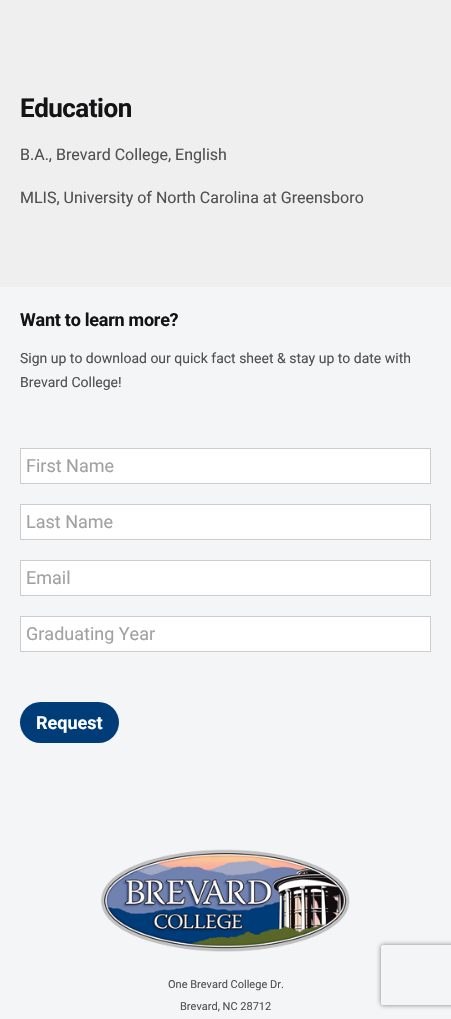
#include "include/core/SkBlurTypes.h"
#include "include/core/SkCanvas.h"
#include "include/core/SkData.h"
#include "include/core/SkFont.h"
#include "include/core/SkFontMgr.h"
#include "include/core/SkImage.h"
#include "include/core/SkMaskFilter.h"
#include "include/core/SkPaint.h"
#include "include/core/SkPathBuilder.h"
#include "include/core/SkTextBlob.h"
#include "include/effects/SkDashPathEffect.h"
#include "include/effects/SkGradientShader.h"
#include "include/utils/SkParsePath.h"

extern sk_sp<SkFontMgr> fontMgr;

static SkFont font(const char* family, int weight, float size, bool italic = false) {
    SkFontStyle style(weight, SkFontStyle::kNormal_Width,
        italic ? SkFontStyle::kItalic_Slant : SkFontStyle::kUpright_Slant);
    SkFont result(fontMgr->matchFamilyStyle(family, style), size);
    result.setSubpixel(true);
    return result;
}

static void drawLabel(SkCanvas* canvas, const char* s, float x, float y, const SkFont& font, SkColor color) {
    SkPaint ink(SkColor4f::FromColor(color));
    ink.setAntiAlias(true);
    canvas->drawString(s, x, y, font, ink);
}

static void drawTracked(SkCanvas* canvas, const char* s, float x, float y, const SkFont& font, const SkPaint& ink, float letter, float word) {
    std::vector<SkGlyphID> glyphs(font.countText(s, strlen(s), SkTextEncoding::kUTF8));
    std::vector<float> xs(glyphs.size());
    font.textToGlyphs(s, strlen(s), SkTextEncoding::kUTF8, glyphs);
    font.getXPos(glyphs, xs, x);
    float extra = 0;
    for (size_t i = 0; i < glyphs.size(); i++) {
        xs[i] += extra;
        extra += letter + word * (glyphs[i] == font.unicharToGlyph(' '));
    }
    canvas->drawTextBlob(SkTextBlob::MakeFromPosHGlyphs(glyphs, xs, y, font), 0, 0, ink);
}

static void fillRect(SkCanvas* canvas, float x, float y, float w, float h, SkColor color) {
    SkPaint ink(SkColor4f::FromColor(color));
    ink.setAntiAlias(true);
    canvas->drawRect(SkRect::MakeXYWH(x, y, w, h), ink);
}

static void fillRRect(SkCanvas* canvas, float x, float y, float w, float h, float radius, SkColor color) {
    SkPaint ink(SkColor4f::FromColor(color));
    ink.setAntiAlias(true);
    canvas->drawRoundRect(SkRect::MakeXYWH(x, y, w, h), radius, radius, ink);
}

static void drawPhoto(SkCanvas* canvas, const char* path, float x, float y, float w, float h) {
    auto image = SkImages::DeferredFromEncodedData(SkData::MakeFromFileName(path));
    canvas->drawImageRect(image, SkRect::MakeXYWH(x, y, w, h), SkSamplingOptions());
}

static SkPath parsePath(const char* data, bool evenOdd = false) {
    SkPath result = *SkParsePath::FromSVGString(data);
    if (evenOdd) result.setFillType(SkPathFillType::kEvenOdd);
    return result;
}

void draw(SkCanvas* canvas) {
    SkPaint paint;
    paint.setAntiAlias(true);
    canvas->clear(0xFFEFEFEF);
    SkFont font1 = font("Roboto", 700, 26);
    paint.setColor(0xFF131415);
    drawTracked(canvas, "Education", 20, 117, font1, paint, -0.5f, 0);
    SkFont font2 = font("Roboto", 400, 16);
    drawLabel(canvas, "B.A., Brevard College, English", 20, 160, font2, 0xFF4F5051);
    drawLabel(canvas, "MLIS, University of North Carolina at Greensboro", 20, 203, font2, 0xFF4F5051);
    fillRect(canvas, 0, 287, 451, 732, 0xFFF3F5F6);
    SkFont font3 = font("Roboto", 700, 18);
    drawTracked(canvas, "Want to learn more?", 20, 326, font3, paint, -0.25f, 0);
    SkFont font4 = font("Roboto", 400, 14);
    drawLabel(canvas, "Sign up to download our quick fact sheet & stay up to date with", 20, 363, font4, 0xFF4F5051);
    drawLabel(canvas, "Brevard College!", 20, 387, font4, 0xFF4F5051);
    paint.setColor(0xFFFFFFFF);
    canvas->drawRect(SkRect::MakeXYWH(20.5f, 448.5f, 410, 35), paint);
    paint.setStroke(true);
    paint.setStrokeWidth(1);
    paint.setColor(0xFFCCCCCC);
    canvas->drawRect(SkRect::MakeXYWH(20.5f, 448.5f, 410, 35), paint);
    SkFont font5 = font("Roboto", 400, 18);
    drawLabel(canvas, "First Name", 26, 472, font5, 0xFFA1A1A1);
    paint.setStroke(false);
    paint.setColor(0xFFFFFFFF);
    canvas->drawRect(SkRect::MakeXYWH(20.5f, 504.5f, 410, 35), paint);
    paint.setStroke(true);
    paint.setColor(0xFFCCCCCC);
    canvas->drawRect(SkRect::MakeXYWH(20.5f, 504.5f, 410, 35), paint);
    drawLabel(canvas, "Last Name", 26, 528, font5, 0xFFA1A1A1);
    paint.setStroke(false);
    paint.setColor(0xFFFFFFFF);
    canvas->drawRect(SkRect::MakeXYWH(20.5f, 560.5f, 410, 35), paint);
    paint.setStroke(true);
    paint.setColor(0xFFCCCCCC);
    canvas->drawRect(SkRect::MakeXYWH(20.5f, 560.5f, 410, 35), paint);
    drawLabel(canvas, "Email", 26, 584, font5, 0xFFA1A1A1);
    paint.setStroke(false);
    paint.setColor(0xFFFFFFFF);
    canvas->drawRect(SkRect::MakeXYWH(20.5f, 616.5f, 410, 35), paint);
    paint.setStroke(true);
    paint.setColor(0xFFCCCCCC);
    canvas->drawRect(SkRect::MakeXYWH(20.5f, 616.5f, 410, 35), paint);
    drawLabel(canvas, "Graduating Year", 26, 640, font5, 0xFFA1A1A1);
    fillRRect(canvas, 20, 702, 99, 41, 20.5f, 0xFF003D78);
    drawLabel(canvas, "Request", 36, 729, font3, 0xFFFFFFFF);
    canvas->save();
    canvas->clipPath(parsePath("M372 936H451V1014H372ZM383 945H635C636 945 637 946 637 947V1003C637 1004 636 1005 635 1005H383C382 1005 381 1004 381 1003V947C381 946 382 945 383 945Z", true), true);
    paint.setStroke(false);
    paint.setColor(0xFF808080);
    paint.setMaskFilter(SkMaskFilter::MakeBlur(kNormal_SkBlurStyle, 2.5f));
    canvas->drawRoundRect(SkRect::MakeXYWH(381, 945, 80, 60), 2, 2, paint);
    paint.setMaskFilter(nullptr);
    canvas->restore();
    drawPhoto(canvas, "assets/img1.png", 101, 849, 249, 103);
    SkFont font6 = font("Roboto", 400, 11);
    drawLabel(canvas, "One Brevard College Dr.", 168, 988, font6, 0xFF4F5051);
    drawLabel(canvas, "Brevard, NC 28712", 180, 1010, font6, 0xFF4F5051);
}
